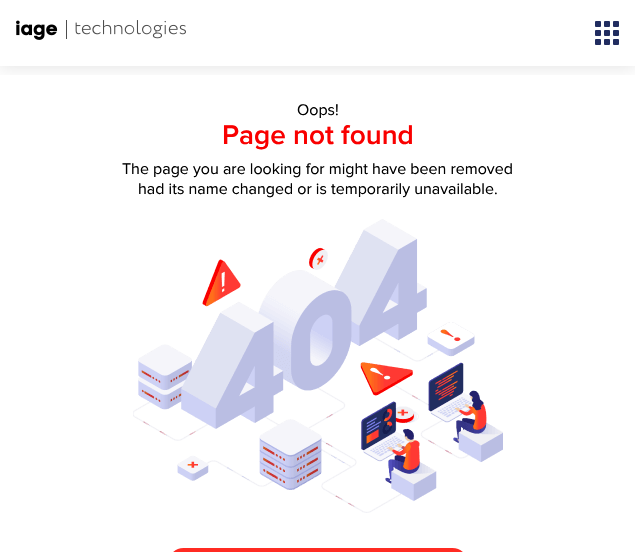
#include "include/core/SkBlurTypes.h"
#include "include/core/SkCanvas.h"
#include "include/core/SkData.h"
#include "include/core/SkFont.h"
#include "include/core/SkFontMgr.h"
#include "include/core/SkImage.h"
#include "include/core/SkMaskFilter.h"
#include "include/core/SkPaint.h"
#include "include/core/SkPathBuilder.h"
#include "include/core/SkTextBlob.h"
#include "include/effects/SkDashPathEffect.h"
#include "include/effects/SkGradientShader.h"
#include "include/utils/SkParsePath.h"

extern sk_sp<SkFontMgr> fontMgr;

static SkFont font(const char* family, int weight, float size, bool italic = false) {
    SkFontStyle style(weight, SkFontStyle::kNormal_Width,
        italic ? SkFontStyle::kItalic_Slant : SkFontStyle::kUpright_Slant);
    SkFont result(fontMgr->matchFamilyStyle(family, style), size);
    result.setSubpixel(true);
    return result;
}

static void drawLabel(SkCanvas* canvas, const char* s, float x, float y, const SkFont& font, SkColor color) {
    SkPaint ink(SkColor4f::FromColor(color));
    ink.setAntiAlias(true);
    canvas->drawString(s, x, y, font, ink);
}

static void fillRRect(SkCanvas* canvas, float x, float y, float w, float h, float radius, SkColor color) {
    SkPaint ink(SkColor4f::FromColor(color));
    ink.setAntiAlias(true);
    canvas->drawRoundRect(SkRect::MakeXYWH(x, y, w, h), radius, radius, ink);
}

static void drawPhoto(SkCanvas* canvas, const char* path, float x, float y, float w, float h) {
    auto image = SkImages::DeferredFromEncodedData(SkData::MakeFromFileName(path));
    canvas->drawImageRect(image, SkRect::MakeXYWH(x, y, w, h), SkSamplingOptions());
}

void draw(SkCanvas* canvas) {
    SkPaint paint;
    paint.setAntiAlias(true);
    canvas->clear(0xFFFFFFFF);
    canvas->save();
    canvas->clipRect(SkRect::MakeXYWH(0, 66, 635, 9));
    paint.setColor(0x1C000000);
    paint.setMaskFilter(SkMaskFilter::MakeBlur(kNormal_SkBlurStyle, 8.5f));
    canvas->drawRect(SkRect::MakeXYWH(-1, -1, 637, 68), paint);
    paint.setMaskFilter(nullptr);
    canvas->restore();
    drawPhoto(canvas, "assets/img1.png", 16, 20, 170, 20);
    drawPhoto(canvas, "assets/img2.png", 595, 21, 24, 24);
    SkFont font1 = font("Proxima Nova", 400, 16);
    drawLabel(canvas, "Oops!", 297, 115, font1, 0xFF000000);
    SkFont font2 = font("Proxima Nova", 600, 28);
    drawLabel(canvas, "Page not found", 222, 144, font2, 0xFFF90000);
    drawLabel(canvas, "The page you are looking for might have been removed", 122, 174, font1, 0xFF000000);
    drawLabel(canvas, "had its name changed or is temporarily unavailable.", 138, 194, font1, 0xFF000000);
    drawPhoto(canvas, "assets/img3.png", 133, 219, 370, 294);
    fillRRect(canvas, 168, 548, 300, 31, 27, 0xFFFF2B23);
}
